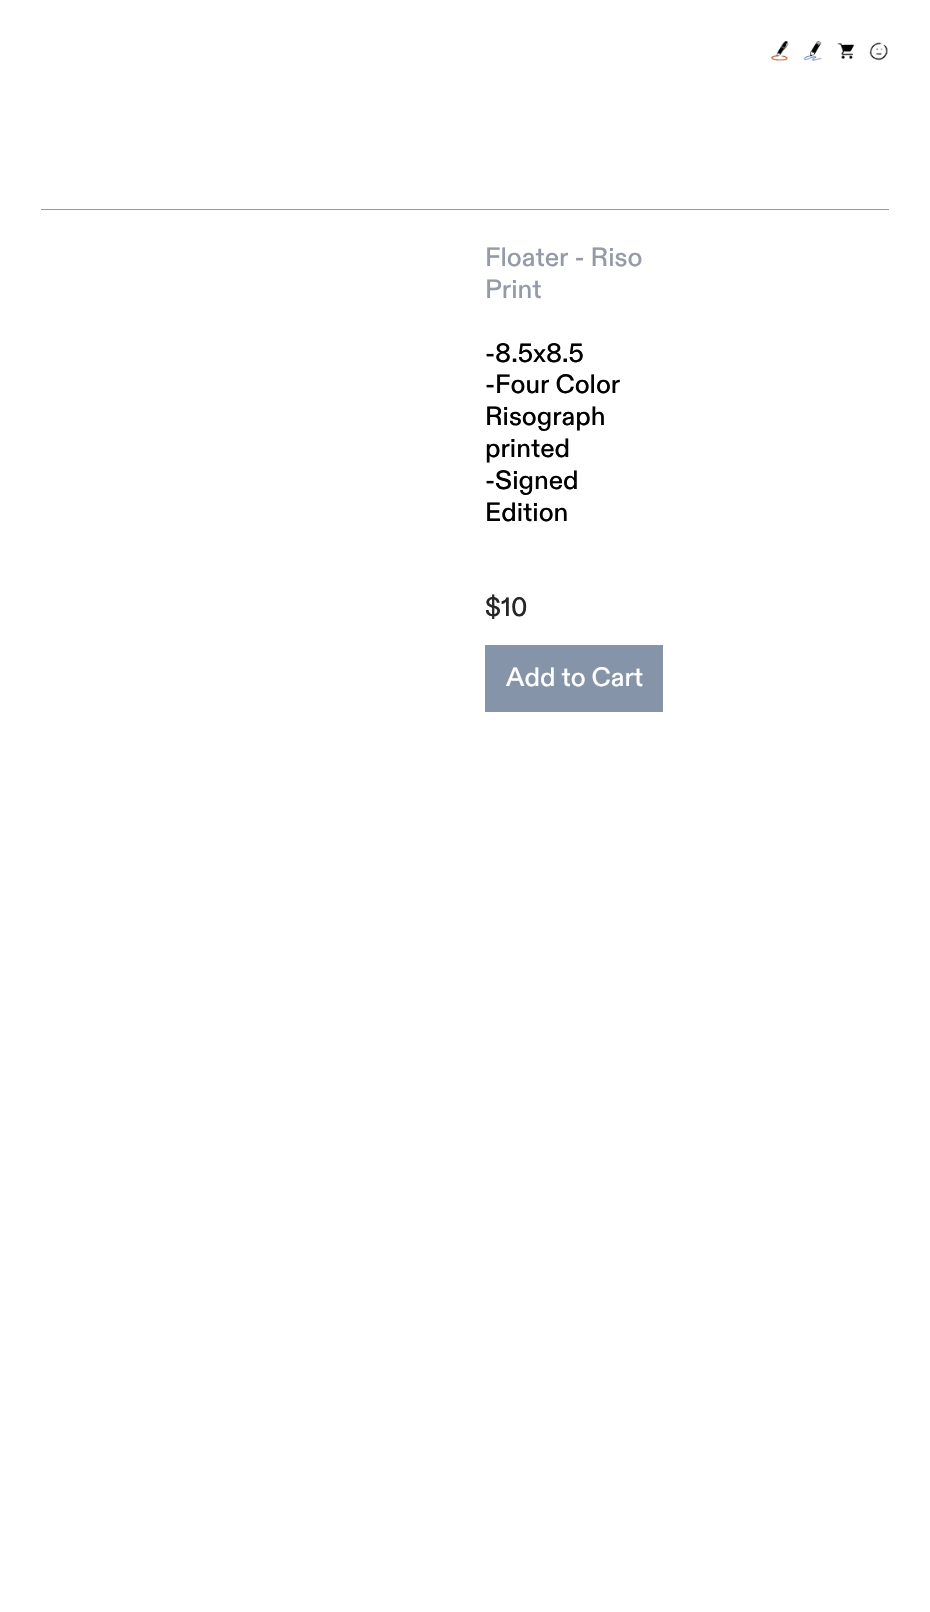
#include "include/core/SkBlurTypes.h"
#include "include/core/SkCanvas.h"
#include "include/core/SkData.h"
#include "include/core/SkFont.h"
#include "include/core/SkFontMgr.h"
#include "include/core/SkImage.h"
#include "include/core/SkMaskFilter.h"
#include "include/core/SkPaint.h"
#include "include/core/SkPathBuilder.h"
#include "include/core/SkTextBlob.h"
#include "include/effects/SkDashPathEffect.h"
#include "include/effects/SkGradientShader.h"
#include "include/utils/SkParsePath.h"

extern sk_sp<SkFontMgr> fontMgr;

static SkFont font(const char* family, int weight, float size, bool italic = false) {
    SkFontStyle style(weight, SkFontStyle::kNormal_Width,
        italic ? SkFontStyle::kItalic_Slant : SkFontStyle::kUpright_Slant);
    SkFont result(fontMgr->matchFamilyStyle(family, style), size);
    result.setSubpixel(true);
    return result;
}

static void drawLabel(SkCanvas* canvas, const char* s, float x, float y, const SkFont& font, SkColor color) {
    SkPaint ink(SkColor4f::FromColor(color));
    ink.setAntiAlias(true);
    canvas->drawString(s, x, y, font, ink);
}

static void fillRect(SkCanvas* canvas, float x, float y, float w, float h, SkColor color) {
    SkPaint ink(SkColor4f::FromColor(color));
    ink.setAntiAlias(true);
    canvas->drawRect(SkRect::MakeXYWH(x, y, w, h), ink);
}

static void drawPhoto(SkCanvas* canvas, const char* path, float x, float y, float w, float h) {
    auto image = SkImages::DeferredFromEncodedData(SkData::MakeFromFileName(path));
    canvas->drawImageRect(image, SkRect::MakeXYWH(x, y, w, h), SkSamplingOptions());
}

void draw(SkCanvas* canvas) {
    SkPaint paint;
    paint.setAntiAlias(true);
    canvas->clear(0xFFFFFFFF);
    drawPhoto(canvas, "assets/img1.png", 770, 41, 19, 20);
    drawPhoto(canvas, "assets/img2.png", 803, 41, 19, 20);
    drawPhoto(canvas, "assets/img3.png", 837, 43, 18, 16);
    drawPhoto(canvas, "assets/img4.png", 869, 42, 19, 19);
    fillRect(canvas, 41, 209, 848, 1, 0xFF999999);
    SkFont font1 = font("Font", 500, 26.5f);
    drawLabel(canvas, "Floater - Riso", 485, 266, font1, 0xFF949AA7);
    drawLabel(canvas, "Print", 485, 298, font1, 0xFF949AA7);
    drawLabel(canvas, "-8.5x8.5", 485, 362, font1, 0xFF000000);
    drawLabel(canvas, "-Four Color", 485, 393, font1, 0xFF000000);
    drawLabel(canvas, "Risograph", 485, 425, font1, 0xFF000000);
    drawLabel(canvas, "printed", 485, 457, font1, 0xFF000000);
    drawLabel(canvas, "-Signed", 485, 489, font1, 0xFF000000);
    drawLabel(canvas, "Edition", 485, 521, font1, 0xFF000000);
    drawLabel(canvas, "$10", 485, 616, font1, 0xFF262626);
    fillRect(canvas, 485, 645, 178, 67, 0xFF8594A8);
    drawLabel(canvas, "Add to Cart", 506, 686, font1, 0xFFFFFFFF);
}
